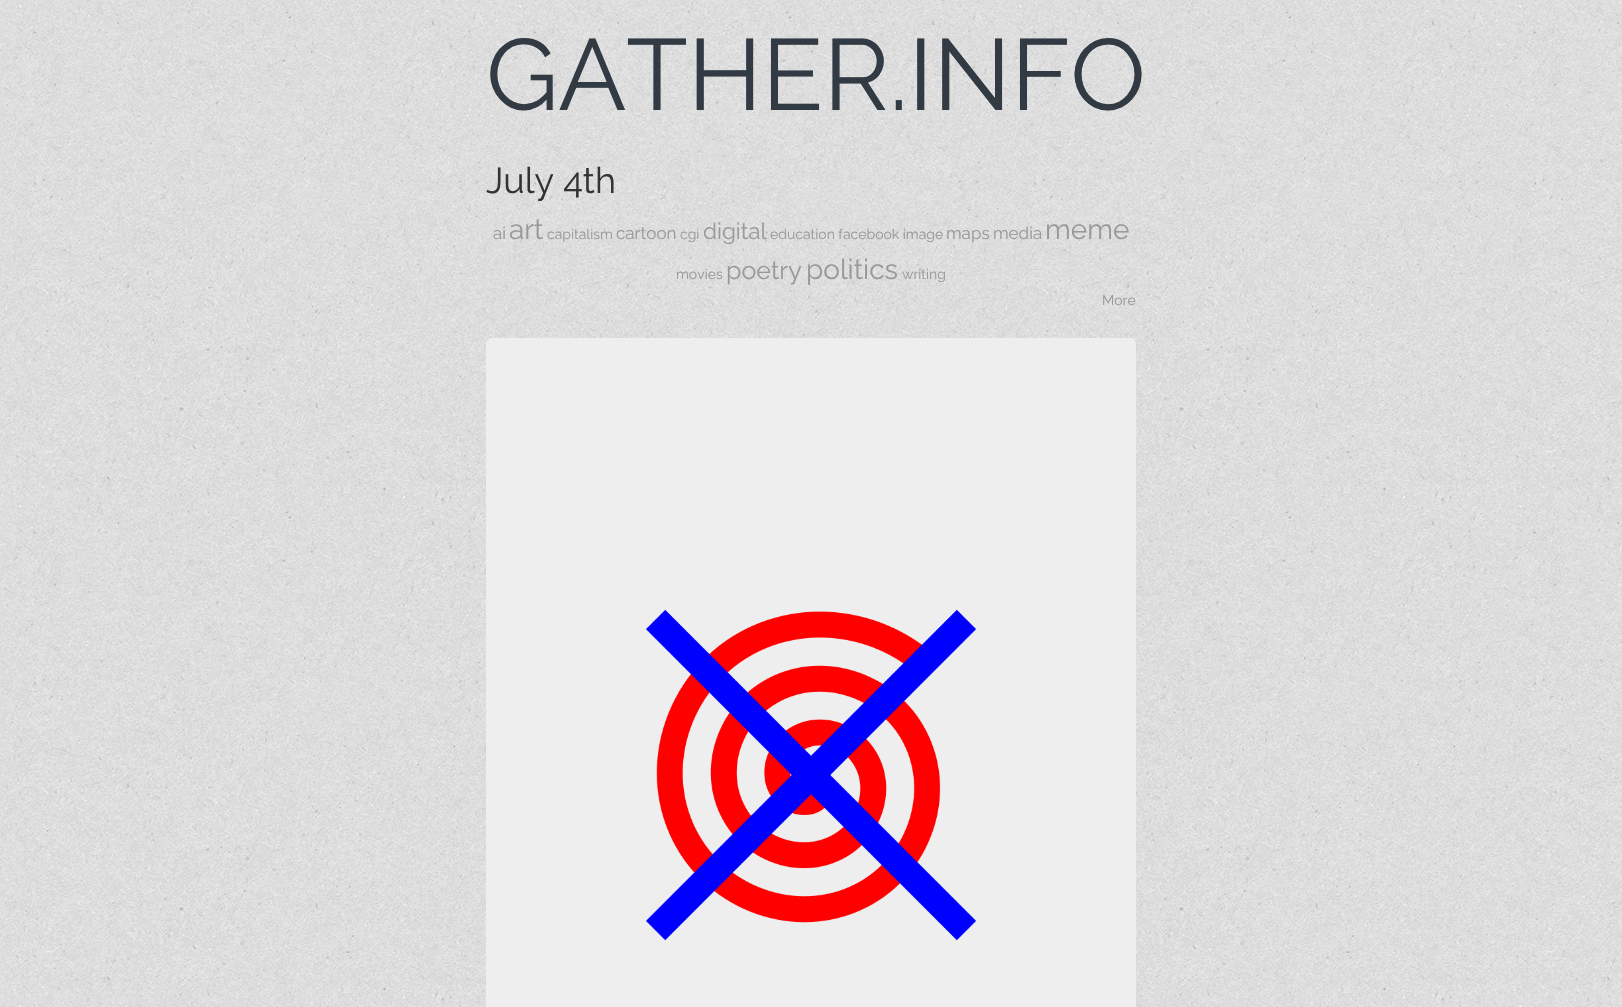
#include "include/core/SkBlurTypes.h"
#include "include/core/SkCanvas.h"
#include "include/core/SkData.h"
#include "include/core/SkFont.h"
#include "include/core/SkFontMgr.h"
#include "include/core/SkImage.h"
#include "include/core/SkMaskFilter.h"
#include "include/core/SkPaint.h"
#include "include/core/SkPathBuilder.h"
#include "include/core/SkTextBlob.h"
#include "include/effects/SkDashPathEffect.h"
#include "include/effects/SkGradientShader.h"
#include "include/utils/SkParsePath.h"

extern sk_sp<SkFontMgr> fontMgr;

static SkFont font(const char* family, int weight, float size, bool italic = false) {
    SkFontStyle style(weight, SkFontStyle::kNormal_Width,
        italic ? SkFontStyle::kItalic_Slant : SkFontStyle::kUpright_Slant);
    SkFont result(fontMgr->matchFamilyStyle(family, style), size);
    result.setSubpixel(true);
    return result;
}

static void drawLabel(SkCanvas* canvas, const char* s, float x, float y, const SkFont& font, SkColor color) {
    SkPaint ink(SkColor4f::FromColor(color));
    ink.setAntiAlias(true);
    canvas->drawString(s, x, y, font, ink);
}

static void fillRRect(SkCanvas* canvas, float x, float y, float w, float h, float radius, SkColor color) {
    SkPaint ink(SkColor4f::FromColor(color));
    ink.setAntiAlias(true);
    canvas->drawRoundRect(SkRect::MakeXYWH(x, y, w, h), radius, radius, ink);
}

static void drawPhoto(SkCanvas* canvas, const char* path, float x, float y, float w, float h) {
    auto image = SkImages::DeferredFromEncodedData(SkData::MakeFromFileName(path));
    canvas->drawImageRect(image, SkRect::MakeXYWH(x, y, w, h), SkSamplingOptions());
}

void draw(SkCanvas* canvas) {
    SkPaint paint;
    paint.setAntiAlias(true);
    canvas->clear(0xFFFFFFFF);
    drawPhoto(canvas, "assets/img1.png", 0, 0, 1622, 1007);
    SkFont font1 = font("Raleway", 100, 100.75f);
    drawLabel(canvas, "GATHER.INFO", 486, 110, font1, 0xFF323B43);
    SkFont font2 = font("Raleway", 100, 36);
    drawLabel(canvas, "July 4th", 486, 193, font2, 0xFF333333);
    SkFont font3 = font("Raleway", 100, 17);
    drawLabel(canvas, "ai", 493, 239, font3, 0xFF999999);
    SkFont font4 = font("Raleway", 100, 28);
    drawLabel(canvas, "art", 509, 239, font4, 0xFF999999);
    SkFont font5 = font("Raleway", 100, 14);
    drawLabel(canvas, "capitalism", 547, 239, font5, 0xFF999999);
    drawLabel(canvas, "cartoon", 616, 239, font3, 0xFF999999);
    drawLabel(canvas, "cgi", 680, 239, font5, 0xFF999999);
    SkFont font6 = font("Raleway", 100, 22.5f);
    drawLabel(canvas, "digital", 703, 239, font6, 0xFF999999);
    drawLabel(canvas, "education facebook image", 770, 239, font5, 0xFF999999);
    drawLabel(canvas, "maps", 946, 239, font3, 0xFF999999);
    drawLabel(canvas, "media", 993, 239, font3, 0xFF999999);
    drawLabel(canvas, "meme", 1045, 239, font4, 0xFF999999);
    drawLabel(canvas, "movies", 676, 279, font5, 0xFF999999);
    SkFont font7 = font("Raleway", 100, 25);
    drawLabel(canvas, "poetry", 726, 279, font7, 0xFF999999);
    drawLabel(canvas, "politics", 806, 279, font4, 0xFF999999);
    drawLabel(canvas, "writing", 902, 279, font5, 0xFF999999);
    drawLabel(canvas, "More", 1102, 305, font5, 0xFF999999);
    fillRRect(canvas, 486, 338, 650, 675, 6, 0xFFEEEEEE);
    drawPhoto(canvas, "assets/img2.png", 646, 609, 330, 332);
}
